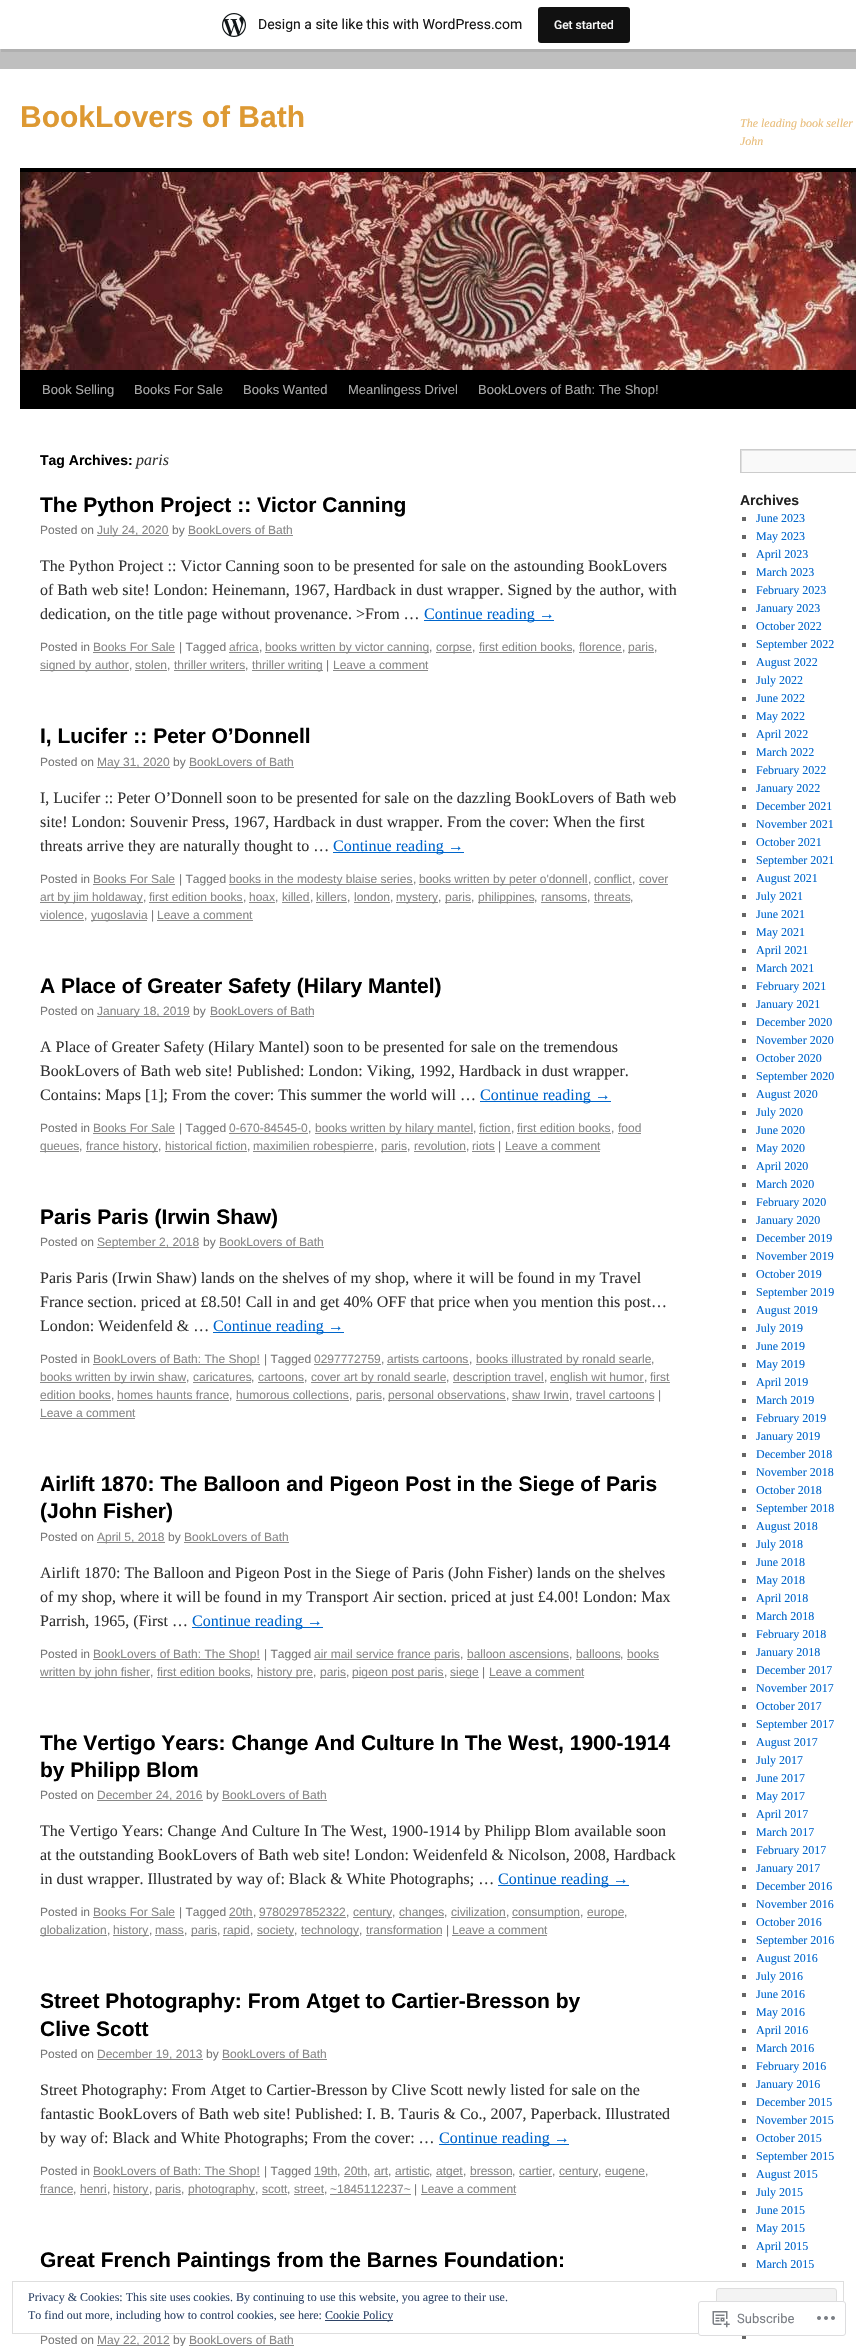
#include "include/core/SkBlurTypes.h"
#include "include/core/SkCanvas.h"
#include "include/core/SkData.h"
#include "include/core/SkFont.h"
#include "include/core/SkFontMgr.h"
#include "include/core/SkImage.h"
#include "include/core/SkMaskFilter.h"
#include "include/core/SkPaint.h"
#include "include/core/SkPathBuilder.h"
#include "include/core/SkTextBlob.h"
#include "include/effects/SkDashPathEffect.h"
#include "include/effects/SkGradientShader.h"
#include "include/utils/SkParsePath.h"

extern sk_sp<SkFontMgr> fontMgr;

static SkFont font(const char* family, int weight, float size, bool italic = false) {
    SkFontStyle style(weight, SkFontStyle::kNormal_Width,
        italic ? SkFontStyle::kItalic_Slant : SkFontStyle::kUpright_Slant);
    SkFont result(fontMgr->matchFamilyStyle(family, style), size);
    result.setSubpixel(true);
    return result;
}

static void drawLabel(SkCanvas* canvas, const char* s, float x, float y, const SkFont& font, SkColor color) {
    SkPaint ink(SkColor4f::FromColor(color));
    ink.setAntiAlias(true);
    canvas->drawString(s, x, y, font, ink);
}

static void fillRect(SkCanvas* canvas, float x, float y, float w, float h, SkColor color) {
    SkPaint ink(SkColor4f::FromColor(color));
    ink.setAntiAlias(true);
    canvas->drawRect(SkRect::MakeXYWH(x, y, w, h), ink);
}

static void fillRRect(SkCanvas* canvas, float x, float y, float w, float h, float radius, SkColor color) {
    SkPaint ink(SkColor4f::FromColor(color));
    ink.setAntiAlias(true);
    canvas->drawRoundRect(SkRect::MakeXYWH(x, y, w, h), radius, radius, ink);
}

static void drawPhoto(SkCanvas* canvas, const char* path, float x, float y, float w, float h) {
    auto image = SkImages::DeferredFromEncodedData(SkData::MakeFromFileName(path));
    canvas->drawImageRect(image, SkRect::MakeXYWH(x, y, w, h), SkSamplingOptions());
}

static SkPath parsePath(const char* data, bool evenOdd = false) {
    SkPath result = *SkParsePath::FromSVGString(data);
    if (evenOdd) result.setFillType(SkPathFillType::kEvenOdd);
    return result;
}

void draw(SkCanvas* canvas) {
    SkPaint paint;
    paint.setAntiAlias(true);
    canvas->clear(0xFFBFBFBF);
    paint.setColor(0x14000000);
    canvas->drawPath(parsePath("M1 49V52H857V3H856V49Z"), paint);
    fillRect(canvas, 0, 0, 856, 49, 0xFFFFFFFF);
    drawPhoto(canvas, "assets/img1.png", 222, 13, 24, 24);
    SkFont font1 = font("Roboto", 400, 14);
    drawLabel(canvas, "Design a site like this with WordPress.com", 258, 29, font1, 0xFF171717);
    fillRRect(canvas, 538, 7, 92, 36, 3, 0xFF111111);
    SkFont font2 = font("Roboto", 500, 12);
    drawLabel(canvas, "Get started", 554, 29, font2, 0xFFF6F7F7);
    fillRect(canvas, 0, 69, 856, 2277, 0xFFFFFFFF);
    SkFont font3 = font("Liberation Sans", 700, 30);
    drawLabel(canvas, "BookLovers of Bath", 20, 127, font3, 0xFFDD9933);
    SkFont font4 = font("Liberation Serif", 400, 12, true);
    drawLabel(canvas, "The leading book seller", 740, 127, font4, 0xFFE9BD7A);
    drawLabel(canvas, "John", 740, 145, font4, 0xFFE9BD7A);
    fillRect(canvas, 20, 168, 836, 4, 0xFF000000);
    fillRect(canvas, 20, 370, 836, 39, 0xFF000000);
    drawPhoto(canvas, "assets/img2.png", 20, 172, 836, 198);
    SkFont font5 = font("Liberation Sans", 400, 13);
    drawLabel(canvas, "Book Selling", 42, 394, font5, 0xFFAAAAAA);
    drawLabel(canvas, "Books For Sale", 134, 394, font5, 0xFFAAAAAA);
    drawLabel(canvas, "Books Wanted", 243, 394, font5, 0xFFAAAAAA);
    drawLabel(canvas, "Meanlingess Drivel", 348, 394, font5, 0xFFAAAAAA);
    drawLabel(canvas, "BookLovers of Bath: The Shop!", 478, 394, font5, 0xFFAAAAAA);
    SkFont font6 = font("Liberation Sans", 700, 14);
    drawLabel(canvas, "Tag Archives:", 40, 465, font6, 0xFF000000);
    SkFont font7 = font("Liberation Serif", 400, 16, true);
    drawLabel(canvas, "paris", 136, 465, font7, 0xFF333333);
    SkFont font8 = font("Liberation Sans", 700, 21);
    drawLabel(canvas, "The Python Project :: Victor Canning", 40, 512, font8, 0xFF000000);
    SkFont font9 = font("Liberation Sans", 400, 12);
    drawLabel(canvas, "Posted on", 40, 534, font9, 0xFF777777);
    fillRect(canvas, 97, 535, 72, 1, 0xFF888888);
    drawLabel(canvas, "July 24, 2020", 97, 534, font9, 0xFF888888);
    drawLabel(canvas, "by", 172, 534, font9, 0xFF777777);
    drawLabel(canvas, "BookLovers of Bath", 188, 534, font9, 0xFF888888);
    fillRect(canvas, 188, 535, 105, 1, 0xFF888888);
    SkFont font10 = font("Liberation Serif", 400, 16);
    drawLabel(canvas, "The Python Project :: Victor Canning soon to be presented for sale on the astounding BookLovers", 40, 571, font10, 0xFF333333);
    drawLabel(canvas, "of Bath web site! London: Heinemann, 1967, Hardback in dust wrapper. Signed by the author, with", 40, 595, font10, 0xFF333333);
    drawLabel(canvas, "dedication, on the title page without provenance. >From …", 40, 619, font10, 0xFF333333);
    fillRect(canvas, 424, 620, 130, 1, 0xFF0066CC);
    drawLabel(canvas, "Continue reading →", 424, 619, font10, 0xFF0066CC);
    drawLabel(canvas, "Posted in", 40, 651, font9, 0xFF777777);
    drawLabel(canvas, "Books For Sale", 93, 651, font9, 0xFF888888);
    fillRect(canvas, 93, 652, 82, 1, 0xFF888888);
    drawLabel(canvas, "| Tagged", 179, 651, font9, 0xFF777777);
    drawLabel(canvas, "africa", 229, 651, font9, 0xFF888888);
    drawLabel(canvas, ",", 259, 651, font9, 0xFF777777);
    fillRect(canvas, 229, 652, 30, 1, 0xFF888888);
    fillRect(canvas, 265, 652, 164, 1, 0xFF888888);
    drawLabel(canvas, "books written by victor canning", 265, 651, font9, 0xFF888888);
    drawLabel(canvas, ",", 429, 651, font9, 0xFF777777);
    fillRect(canvas, 436, 652, 36, 1, 0xFF888888);
    drawLabel(canvas, "corpse", 436, 651, font9, 0xFF888888);
    drawLabel(canvas, ",", 472, 651, font9, 0xFF777777);
    drawLabel(canvas, "first edition books", 479, 651, font9, 0xFF888888);
    drawLabel(canvas, ",", 572, 651, font9, 0xFF777777);
    fillRect(canvas, 479, 652, 93, 1, 0xFF888888);
    drawLabel(canvas, "florence", 579, 651, font9, 0xFF888888);
    drawLabel(canvas, ",", 622, 651, font9, 0xFF777777);
    fillRect(canvas, 579, 652, 43, 1, 0xFF888888);
    fillRect(canvas, 628, 652, 26, 1, 0xFF888888);
    drawLabel(canvas, "paris", 628, 651, font9, 0xFF888888);
    drawLabel(canvas, ",", 654, 651, font9, 0xFF777777);
    fillRect(canvas, 40, 670, 89, 1, 0xFF888888);
    drawLabel(canvas, "signed by author", 40, 669, font9, 0xFF888888);
    drawLabel(canvas, ",", 129, 669, font9, 0xFF777777);
    drawLabel(canvas, "stolen", 135, 669, font9, 0xFF888888);
    drawLabel(canvas, ",", 167, 669, font9, 0xFF777777);
    fillRect(canvas, 135, 670, 32, 1, 0xFF888888);
    drawLabel(canvas, "thriller writers", 174, 669, font9, 0xFF888888);
    drawLabel(canvas, ",", 245, 669, font9, 0xFF777777);
    fillRect(canvas, 174, 670, 71, 1, 0xFF888888);
    fillRect(canvas, 252, 670, 71, 1, 0xFF888888);
    drawLabel(canvas, "thriller writing", 252, 669, font9, 0xFF888888);
    drawLabel(canvas, "|", 326, 669, font9, 0xFF777777);
    drawLabel(canvas, "Leave a comment", 333, 669, font9, 0xFF888888);
    fillRect(canvas, 333, 670, 95, 1, 0xFF888888);
    drawLabel(canvas, "I, Lucifer :: Peter O’Donnell", 40, 743, font8, 0xFF000000);
    drawLabel(canvas, "Posted on", 40, 766, font9, 0xFF777777);
    fillRect(canvas, 97, 767, 73, 1, 0xFF888888);
    drawLabel(canvas, "May 31, 2020", 97, 766, font9, 0xFF888888);
    drawLabel(canvas, "by", 173, 766, font9, 0xFF777777);
    drawLabel(canvas, "BookLovers of Bath", 189, 766, font9, 0xFF888888);
    fillRect(canvas, 189, 767, 105, 1, 0xFF888888);
    drawLabel(canvas, "I, Lucifer :: Peter O’Donnell soon to be presented for sale on the dazzling BookLovers of Bath web", 40, 803, font10, 0xFF333333);
    drawLabel(canvas, "site! London: Souvenir Press, 1967, Hardback in dust wrapper. From the cover: When the first", 40, 827, font10, 0xFF333333);
    drawLabel(canvas, "threats arrive they are naturally thought to …", 40, 851, font10, 0xFF333333);
    fillRect(canvas, 333, 852, 131, 1, 0xFF0066CC);
    drawLabel(canvas, "Continue reading →", 333, 851, font10, 0xFF0066CC);
    drawLabel(canvas, "Posted in", 40, 883, font9, 0xFF777777);
    drawLabel(canvas, "Books For Sale", 93, 883, font9, 0xFF888888);
    fillRect(canvas, 93, 884, 82, 1, 0xFF888888);
    drawLabel(canvas, "| Tagged", 179, 883, font9, 0xFF777777);
    fillRect(canvas, 229, 884, 184, 1, 0xFF888888);
    drawLabel(canvas, "books in the modesty blaise series", 229, 883, font9, 0xFF888888);
    drawLabel(canvas, ",", 413, 883, font9, 0xFF777777);
    fillRect(canvas, 419, 884, 169, 1, 0xFF888888);
    drawLabel(canvas, "books written by peter o'donnell", 419, 883, font9, 0xFF888888);
    drawLabel(canvas, ",", 588, 883, font9, 0xFF777777);
    drawLabel(canvas, "conflict", 594, 883, font9, 0xFF888888);
    drawLabel(canvas, ",", 632, 883, font9, 0xFF777777);
    fillRect(canvas, 594, 884, 38, 1, 0xFF888888);
    fillRect(canvas, 639, 884, 29, 1, 0xFF888888);
    drawLabel(canvas, "cover", 639, 883, font9, 0xFF888888);
    fillRect(canvas, 40, 902, 103, 1, 0xFF888888);
    drawLabel(canvas, "art by jim holdaway", 40, 901, font9, 0xFF888888);
    drawLabel(canvas, ",", 143, 901, font9, 0xFF777777);
    drawLabel(canvas, "first edition books", 149, 901, font9, 0xFF888888);
    drawLabel(canvas, ",", 243, 901, font9, 0xFF777777);
    fillRect(canvas, 149, 902, 94, 1, 0xFF888888);
    drawLabel(canvas, "hoax", 249, 901, font9, 0xFF888888);
    drawLabel(canvas, ",", 275, 901, font9, 0xFF777777);
    fillRect(canvas, 249, 902, 26, 1, 0xFF888888);
    drawLabel(canvas, "killed", 282, 901, font9, 0xFF888888);
    drawLabel(canvas, ",", 310, 901, font9, 0xFF777777);
    fillRect(canvas, 282, 902, 28, 1, 0xFF888888);
    drawLabel(canvas, "killers", 316, 901, font9, 0xFF888888);
    drawLabel(canvas, ",", 347, 901, font9, 0xFF777777);
    fillRect(canvas, 316, 902, 31, 1, 0xFF888888);
    drawLabel(canvas, "london", 354, 901, font9, 0xFF888888);
    drawLabel(canvas, ",", 390, 901, font9, 0xFF777777);
    fillRect(canvas, 354, 902, 36, 1, 0xFF888888);
    fillRect(canvas, 396, 902, 42, 1, 0xFF888888);
    drawLabel(canvas, "mystery", 396, 901, font9, 0xFF888888);
    drawLabel(canvas, ",", 438, 901, font9, 0xFF777777);
    fillRect(canvas, 445, 902, 26, 1, 0xFF888888);
    drawLabel(canvas, "paris", 445, 901, font9, 0xFF888888);
    drawLabel(canvas, ",", 471, 901, font9, 0xFF777777);
    fillRect(canvas, 478, 902, 56, 1, 0xFF888888);
    drawLabel(canvas, "philippines", 478, 901, font9, 0xFF888888);
    drawLabel(canvas, ",", 534, 901, font9, 0xFF777777);
    drawLabel(canvas, "ransoms", 541, 901, font9, 0xFF888888);
    drawLabel(canvas, ",", 587, 901, font9, 0xFF777777);
    fillRect(canvas, 541, 902, 46, 1, 0xFF888888);
    drawLabel(canvas, "threats", 594, 901, font9, 0xFF888888);
    drawLabel(canvas, ",", 630, 901, font9, 0xFF777777);
    fillRect(canvas, 594, 902, 36, 1, 0xFF888888);
    drawLabel(canvas, "violence", 40, 919, font9, 0xFF888888);
    drawLabel(canvas, ",", 84, 919, font9, 0xFF777777);
    fillRect(canvas, 40, 920, 44, 1, 0xFF888888);
    fillRect(canvas, 91, 920, 56, 1, 0xFF888888);
    drawLabel(canvas, "yugoslavia", 91, 919, font9, 0xFF888888);
    drawLabel(canvas, "|", 151, 919, font9, 0xFF777777);
    drawLabel(canvas, "Leave a comment", 157, 919, font9, 0xFF888888);
    fillRect(canvas, 157, 920, 96, 1, 0xFF888888);
    drawLabel(canvas, "A Place of Greater Safety (Hilary Mantel)", 40, 993, font8, 0xFF000000);
    drawLabel(canvas, "Posted on", 40, 1015, font9, 0xFF777777);
    fillRect(canvas, 97, 1016, 93, 1, 0xFF888888);
    drawLabel(canvas, "January 18, 2019", 97, 1015, font9, 0xFF888888);
    drawLabel(canvas, "by", 193, 1015, font9, 0xFF777777);
    drawLabel(canvas, "BookLovers of Bath", 210, 1015, font9, 0xFF888888);
    fillRect(canvas, 210, 1016, 104, 1, 0xFF888888);
    drawLabel(canvas, "A Place of Greater Safety (Hilary Mantel) soon to be presented for sale on the tremendous", 40, 1052, font10, 0xFF333333);
    drawLabel(canvas, "BookLovers of Bath web site! Published: London: Viking, 1992, Hardback in dust wrapper.", 40, 1076, font10, 0xFF333333);
    drawLabel(canvas, "Contains: Maps [1]; From the cover: This summer the world will …", 40, 1100, font10, 0xFF333333);
    fillRect(canvas, 480, 1101, 131, 1, 0xFF0066CC);
    drawLabel(canvas, "Continue reading →", 480, 1100, font10, 0xFF0066CC);
    drawLabel(canvas, "Posted in", 40, 1132, font9, 0xFF777777);
    drawLabel(canvas, "Books For Sale", 93, 1132, font9, 0xFF888888);
    fillRect(canvas, 93, 1133, 82, 1, 0xFF888888);
    drawLabel(canvas, "| Tagged", 179, 1132, font9, 0xFF777777);
    drawLabel(canvas, "0-670-84545-0", 229, 1132, font9, 0xFF888888);
    drawLabel(canvas, ",", 308, 1132, font9, 0xFF777777);
    fillRect(canvas, 229, 1133, 79, 1, 0xFF888888);
    fillRect(canvas, 315, 1133, 158, 1, 0xFF888888);
    drawLabel(canvas, "books written by hilary mantel", 315, 1132, font9, 0xFF888888);
    drawLabel(canvas, ",", 473, 1132, font9, 0xFF777777);
    drawLabel(canvas, "fiction", 479, 1132, font9, 0xFF888888);
    drawLabel(canvas, ",", 511, 1132, font9, 0xFF777777);
    fillRect(canvas, 479, 1133, 32, 1, 0xFF888888);
    drawLabel(canvas, "first edition books", 517, 1132, font9, 0xFF888888);
    drawLabel(canvas, ",", 611, 1132, font9, 0xFF777777);
    fillRect(canvas, 517, 1133, 94, 1, 0xFF888888);
    fillRect(canvas, 618, 1133, 23, 1, 0xFF888888);
    drawLabel(canvas, "food", 618, 1132, font9, 0xFF888888);
    fillRect(canvas, 40, 1151, 39, 1, 0xFF888888);
    drawLabel(canvas, "queues", 40, 1150, font9, 0xFF888888);
    drawLabel(canvas, ",", 79, 1150, font9, 0xFF777777);
    fillRect(canvas, 86, 1151, 72, 1, 0xFF888888);
    drawLabel(canvas, "france history", 86, 1150, font9, 0xFF888888);
    drawLabel(canvas, ",", 158, 1150, font9, 0xFF777777);
    drawLabel(canvas, "historical fiction", 165, 1150, font9, 0xFF888888);
    drawLabel(canvas, ",", 247, 1150, font9, 0xFF777777);
    fillRect(canvas, 165, 1151, 82, 1, 0xFF888888);
    fillRect(canvas, 253, 1151, 121, 1, 0xFF888888);
    drawLabel(canvas, "maximilien robespierre", 253, 1150, font9, 0xFF888888);
    drawLabel(canvas, ",", 374, 1150, font9, 0xFF777777);
    fillRect(canvas, 381, 1151, 26, 1, 0xFF888888);
    drawLabel(canvas, "paris", 381, 1150, font9, 0xFF888888);
    drawLabel(canvas, ",", 407, 1150, font9, 0xFF777777);
    drawLabel(canvas, "revolution", 414, 1150, font9, 0xFF888888);
    drawLabel(canvas, ",", 466, 1150, font9, 0xFF777777);
    fillRect(canvas, 414, 1151, 52, 1, 0xFF888888);
    fillRect(canvas, 472, 1151, 23, 1, 0xFF888888);
    drawLabel(canvas, "riots", 472, 1150, font9, 0xFF888888);
    drawLabel(canvas, "|", 498, 1150, font9, 0xFF777777);
    drawLabel(canvas, "Leave a comment", 505, 1150, font9, 0xFF888888);
    fillRect(canvas, 505, 1151, 95, 1, 0xFF888888);
    drawLabel(canvas, "Paris Paris (Irwin Shaw)", 40, 1224, font8, 0xFF000000);
    drawLabel(canvas, "Posted on", 40, 1246, font9, 0xFF777777);
    fillRect(canvas, 97, 1247, 102, 1, 0xFF888888);
    drawLabel(canvas, "September 2, 2018", 97, 1246, font9, 0xFF888888);
    drawLabel(canvas, "by", 203, 1246, font9, 0xFF777777);
    drawLabel(canvas, "BookLovers of Bath", 219, 1246, font9, 0xFF888888);
    fillRect(canvas, 219, 1247, 105, 1, 0xFF888888);
    drawLabel(canvas, "Paris Paris (Irwin Shaw) lands on the shelves of my shop, where it will be found in my Travel", 40, 1283, font10, 0xFF333333);
    drawLabel(canvas, "France section. priced at £8.50! Call in and get 40% OFF that price when you mention this post…", 40, 1307, font10, 0xFF333333);
    drawLabel(canvas, "London: Weidenfeld & …", 40, 1331, font10, 0xFF333333);
    fillRect(canvas, 213, 1332, 131, 1, 0xFF0066CC);
    drawLabel(canvas, "Continue reading →", 213, 1331, font10, 0xFF0066CC);
    drawLabel(canvas, "Posted in", 40, 1363, font9, 0xFF777777);
    fillRect(canvas, 93, 1364, 167, 1, 0xFF888888);
    drawLabel(canvas, "BookLovers of Bath: The Shop!", 93, 1363, font9, 0xFF888888);
    drawLabel(canvas, "| Tagged", 264, 1363, font9, 0xFF777777);
    drawLabel(canvas, "0297772759", 314, 1363, font9, 0xFF888888);
    drawLabel(canvas, ",", 381, 1363, font9, 0xFF777777);
    fillRect(canvas, 314, 1364, 67, 1, 0xFF888888);
    drawLabel(canvas, "artists cartoons", 387, 1363, font9, 0xFF888888);
    drawLabel(canvas, ",", 469, 1363, font9, 0xFF777777);
    fillRect(canvas, 387, 1364, 82, 1, 0xFF888888);
    fillRect(canvas, 476, 1364, 175, 1, 0xFF888888);
    drawLabel(canvas, "books illustrated by ronald searle", 476, 1363, font9, 0xFF888888);
    drawLabel(canvas, ",", 651, 1363, font9, 0xFF777777);
    fillRect(canvas, 40, 1382, 146, 1, 0xFF888888);
    drawLabel(canvas, "books written by irwin shaw", 40, 1381, font9, 0xFF888888);
    drawLabel(canvas, ",", 186, 1381, font9, 0xFF777777);
    drawLabel(canvas, "caricatures", 193, 1381, font9, 0xFF888888);
    drawLabel(canvas, ",", 251, 1381, font9, 0xFF777777);
    fillRect(canvas, 193, 1382, 58, 1, 0xFF888888);
    drawLabel(canvas, "cartoons", 258, 1381, font9, 0xFF888888);
    drawLabel(canvas, ",", 304, 1381, font9, 0xFF777777);
    fillRect(canvas, 258, 1382, 46, 1, 0xFF888888);
    fillRect(canvas, 311, 1382, 135, 1, 0xFF888888);
    drawLabel(canvas, "cover art by ronald searle", 311, 1381, font9, 0xFF888888);
    drawLabel(canvas, ",", 446, 1381, font9, 0xFF777777);
    fillRect(canvas, 453, 1382, 91, 1, 0xFF888888);
    drawLabel(canvas, "description travel", 453, 1381, font9, 0xFF888888);
    drawLabel(canvas, ",", 544, 1381, font9, 0xFF777777);
    fillRect(canvas, 550, 1382, 94, 1, 0xFF888888);
    drawLabel(canvas, "english wit humor", 550, 1381, font9, 0xFF888888);
    drawLabel(canvas, ",", 644, 1381, font9, 0xFF777777);
    fillRect(canvas, 650, 1382, 20, 1, 0xFF888888);
    drawLabel(canvas, "first", 650, 1381, font9, 0xFF888888);
    drawLabel(canvas, "edition books", 40, 1399, font9, 0xFF888888);
    drawLabel(canvas, ",", 111, 1399, font9, 0xFF777777);
    fillRect(canvas, 40, 1400, 71, 1, 0xFF888888);
    drawLabel(canvas, "homes haunts france", 117, 1399, font9, 0xFF888888);
    drawLabel(canvas, ",", 229, 1399, font9, 0xFF777777);
    fillRect(canvas, 117, 1400, 112, 1, 0xFF888888);
    drawLabel(canvas, "humorous collections", 236, 1399, font9, 0xFF888888);
    drawLabel(canvas, ",", 349, 1399, font9, 0xFF777777);
    fillRect(canvas, 236, 1400, 113, 1, 0xFF888888);
    fillRect(canvas, 356, 1400, 26, 1, 0xFF888888);
    drawLabel(canvas, "paris", 356, 1399, font9, 0xFF888888);
    drawLabel(canvas, ",", 382, 1399, font9, 0xFF777777);
    fillRect(canvas, 388, 1400, 118, 1, 0xFF888888);
    drawLabel(canvas, "personal observations", 388, 1399, font9, 0xFF888888);
    drawLabel(canvas, ",", 506, 1399, font9, 0xFF777777);
    drawLabel(canvas, "shaw Irwin", 512, 1399, font9, 0xFF888888);
    drawLabel(canvas, ",", 569, 1399, font9, 0xFF777777);
    fillRect(canvas, 512, 1400, 57, 1, 0xFF888888);
    fillRect(canvas, 576, 1400, 78, 1, 0xFF888888);
    drawLabel(canvas, "travel cartoons", 576, 1399, font9, 0xFF888888);
    drawLabel(canvas, "|", 658, 1399, font9, 0xFF777777);
    drawLabel(canvas, "Leave a comment", 40, 1417, font9, 0xFF888888);
    fillRect(canvas, 40, 1418, 95, 1, 0xFF888888);
    drawLabel(canvas, "Airlift 1870: The Balloon and Pigeon Post in the Siege of Paris", 40, 1491, font8, 0xFF000000);
    drawLabel(canvas, "(John Fisher)", 40, 1518, font8, 0xFF000000);
    drawLabel(canvas, "Posted on", 40, 1541, font9, 0xFF777777);
    fillRect(canvas, 97, 1542, 68, 1, 0xFF888888);
    drawLabel(canvas, "April 5, 2018", 97, 1541, font9, 0xFF888888);
    drawLabel(canvas, "by", 168, 1541, font9, 0xFF777777);
    drawLabel(canvas, "BookLovers of Bath", 184, 1541, font9, 0xFF888888);
    fillRect(canvas, 184, 1542, 105, 1, 0xFF888888);
    drawLabel(canvas, "Airlift 1870: The Balloon and Pigeon Post in the Siege of Paris (John Fisher) lands on the shelves", 40, 1578, font10, 0xFF333333);
    drawLabel(canvas, "of my shop, where it will be found in my Transport Air section. priced at just £4.00! London: Max", 40, 1602, font10, 0xFF333333);
    drawLabel(canvas, "Parrish, 1965, (First …", 40, 1626, font10, 0xFF333333);
    fillRect(canvas, 192, 1627, 131, 1, 0xFF0066CC);
    drawLabel(canvas, "Continue reading →", 192, 1626, font10, 0xFF0066CC);
    drawLabel(canvas, "Posted in", 40, 1658, font9, 0xFF777777);
    fillRect(canvas, 93, 1659, 167, 1, 0xFF888888);
    drawLabel(canvas, "BookLovers of Bath: The Shop!", 93, 1658, font9, 0xFF888888);
    drawLabel(canvas, "| Tagged", 264, 1658, font9, 0xFF777777);
    fillRect(canvas, 314, 1659, 146, 1, 0xFF888888);
    drawLabel(canvas, "air mail service france paris", 314, 1658, font9, 0xFF888888);
    drawLabel(canvas, ",", 460, 1658, font9, 0xFF777777);
    drawLabel(canvas, "balloon ascensions", 467, 1658, font9, 0xFF888888);
    drawLabel(canvas, ",", 569, 1658, font9, 0xFF777777);
    fillRect(canvas, 467, 1659, 102, 1, 0xFF888888);
    drawLabel(canvas, "balloons", 576, 1658, font9, 0xFF888888);
    drawLabel(canvas, ",", 620, 1658, font9, 0xFF777777);
    fillRect(canvas, 576, 1659, 44, 1, 0xFF888888);
    fillRect(canvas, 627, 1659, 32, 1, 0xFF888888);
    drawLabel(canvas, "books", 627, 1658, font9, 0xFF888888);
    fillRect(canvas, 40, 1677, 110, 1, 0xFF888888);
    drawLabel(canvas, "written by john fisher", 40, 1676, font9, 0xFF888888);
    drawLabel(canvas, ",", 150, 1676, font9, 0xFF777777);
    drawLabel(canvas, "first edition books", 157, 1676, font9, 0xFF888888);
    drawLabel(canvas, ",", 250, 1676, font9, 0xFF777777);
    fillRect(canvas, 157, 1677, 93, 1, 0xFF888888);
    fillRect(canvas, 257, 1677, 56, 1, 0xFF888888);
    drawLabel(canvas, "history pre", 257, 1676, font9, 0xFF888888);
    drawLabel(canvas, ",", 313, 1676, font9, 0xFF777777);
    fillRect(canvas, 320, 1677, 26, 1, 0xFF888888);
    drawLabel(canvas, "paris", 320, 1676, font9, 0xFF888888);
    drawLabel(canvas, ",", 346, 1676, font9, 0xFF777777);
    fillRect(canvas, 352, 1677, 92, 1, 0xFF888888);
    drawLabel(canvas, "pigeon post paris", 352, 1676, font9, 0xFF888888);
    drawLabel(canvas, ",", 444, 1676, font9, 0xFF777777);
    fillRect(canvas, 450, 1677, 29, 1, 0xFF888888);
    drawLabel(canvas, "siege", 450, 1676, font9, 0xFF888888);
    drawLabel(canvas, "|", 482, 1676, font9, 0xFF777777);
    drawLabel(canvas, "Leave a comment", 489, 1676, font9, 0xFF888888);
    fillRect(canvas, 489, 1677, 95, 1, 0xFF888888);
    drawLabel(canvas, "The Vertigo Years: Change And Culture In The West, 1900-1914", 40, 1750, font8, 0xFF000000);
    drawLabel(canvas, "by Philipp Blom", 40, 1777, font8, 0xFF000000);
    drawLabel(canvas, "Posted on", 40, 1799, font9, 0xFF777777);
    fillRect(canvas, 97, 1800, 106, 1, 0xFF888888);
    drawLabel(canvas, "December 24, 2016", 97, 1799, font9, 0xFF888888);
    drawLabel(canvas, "by", 206, 1799, font9, 0xFF777777);
    drawLabel(canvas, "BookLovers of Bath", 222, 1799, font9, 0xFF888888);
    fillRect(canvas, 222, 1800, 105, 1, 0xFF888888);
    drawLabel(canvas, "The Vertigo Years: Change And Culture In The West, 1900-1914 by Philipp Blom available soon", 40, 1836, font10, 0xFF333333);
    drawLabel(canvas, "at the outstanding BookLovers of Bath web site! London: Weidenfeld & Nicolson, 2008, Hardback", 40, 1860, font10, 0xFF333333);
    drawLabel(canvas, "in dust wrapper. Illustrated by way of: Black & White Photographs; …", 40, 1884, font10, 0xFF333333);
    fillRect(canvas, 498, 1885, 131, 1, 0xFF0066CC);
    drawLabel(canvas, "Continue reading →", 498, 1884, font10, 0xFF0066CC);
    drawLabel(canvas, "Posted in", 40, 1916, font9, 0xFF777777);
    drawLabel(canvas, "Books For Sale", 93, 1916, font9, 0xFF888888);
    fillRect(canvas, 93, 1917, 82, 1, 0xFF888888);
    drawLabel(canvas, "| Tagged", 179, 1916, font9, 0xFF777777);
    drawLabel(canvas, "20th", 229, 1916, font9, 0xFF888888);
    drawLabel(canvas, ",", 253, 1916, font9, 0xFF777777);
    fillRect(canvas, 229, 1917, 24, 1, 0xFF888888);
    drawLabel(canvas, "9780297852322", 259, 1916, font9, 0xFF888888);
    drawLabel(canvas, ",", 346, 1916, font9, 0xFF777777);
    fillRect(canvas, 259, 1917, 87, 1, 0xFF888888);
    fillRect(canvas, 353, 1917, 39, 1, 0xFF888888);
    drawLabel(canvas, "century", 353, 1916, font9, 0xFF888888);
    drawLabel(canvas, ",", 392, 1916, font9, 0xFF777777);
    fillRect(canvas, 399, 1917, 45, 1, 0xFF888888);
    drawLabel(canvas, "changes", 399, 1916, font9, 0xFF888888);
    drawLabel(canvas, ",", 444, 1916, font9, 0xFF777777);
    drawLabel(canvas, "civilization", 451, 1916, font9, 0xFF888888);
    drawLabel(canvas, ",", 506, 1916, font9, 0xFF777777);
    fillRect(canvas, 451, 1917, 55, 1, 0xFF888888);
    fillRect(canvas, 512, 1917, 68, 1, 0xFF888888);
    drawLabel(canvas, "consumption", 512, 1916, font9, 0xFF888888);
    drawLabel(canvas, ",", 580, 1916, font9, 0xFF777777);
    fillRect(canvas, 587, 1917, 37, 1, 0xFF888888);
    drawLabel(canvas, "europe", 587, 1916, font9, 0xFF888888);
    drawLabel(canvas, ",", 624, 1916, font9, 0xFF777777);
    fillRect(canvas, 40, 1935, 67, 1, 0xFF888888);
    drawLabel(canvas, "globalization", 40, 1934, font9, 0xFF888888);
    drawLabel(canvas, ",", 107, 1934, font9, 0xFF777777);
    fillRect(canvas, 113, 1935, 36, 1, 0xFF888888);
    drawLabel(canvas, "history", 113, 1934, font9, 0xFF888888);
    drawLabel(canvas, ",", 149, 1934, font9, 0xFF777777);
    drawLabel(canvas, "mass", 155, 1934, font9, 0xFF888888);
    drawLabel(canvas, ",", 184, 1934, font9, 0xFF777777);
    fillRect(canvas, 155, 1935, 29, 1, 0xFF888888);
    fillRect(canvas, 191, 1935, 26, 1, 0xFF888888);
    drawLabel(canvas, "paris", 191, 1934, font9, 0xFF888888);
    drawLabel(canvas, ",", 217, 1934, font9, 0xFF777777);
    fillRect(canvas, 223, 1935, 27, 1, 0xFF888888);
    drawLabel(canvas, "rapid", 223, 1934, font9, 0xFF888888);
    drawLabel(canvas, ",", 250, 1934, font9, 0xFF777777);
    fillRect(canvas, 257, 1935, 37, 1, 0xFF888888);
    drawLabel(canvas, "society", 257, 1934, font9, 0xFF888888);
    drawLabel(canvas, ",", 294, 1934, font9, 0xFF777777);
    fillRect(canvas, 301, 1935, 58, 1, 0xFF888888);
    drawLabel(canvas, "technology", 301, 1934, font9, 0xFF888888);
    drawLabel(canvas, ",", 359, 1934, font9, 0xFF777777);
    fillRect(canvas, 366, 1935, 76, 1, 0xFF888888);
    drawLabel(canvas, "transformation", 366, 1934, font9, 0xFF888888);
    drawLabel(canvas, "|", 446, 1934, font9, 0xFF777777);
    drawLabel(canvas, "Leave a comment", 452, 1934, font9, 0xFF888888);
    fillRect(canvas, 452, 1935, 95, 1, 0xFF888888);
    drawLabel(canvas, "Street Photography: From Atget to Cartier-Bresson by", 40, 2008, font8, 0xFF000000);
    drawLabel(canvas, "Clive Scott", 40, 2036, font8, 0xFF000000);
    drawLabel(canvas, "Posted on", 40, 2058, font9, 0xFF777777);
    fillRect(canvas, 97, 2059, 106, 1, 0xFF888888);
    drawLabel(canvas, "December 19, 2013", 97, 2058, font9, 0xFF888888);
    drawLabel(canvas, "by", 206, 2058, font9, 0xFF777777);
    drawLabel(canvas, "BookLovers of Bath", 222, 2058, font9, 0xFF888888);
    fillRect(canvas, 222, 2059, 105, 1, 0xFF888888);
    drawLabel(canvas, "Street Photography: From Atget to Cartier-Bresson by Clive Scott newly listed for sale on the", 40, 2095, font10, 0xFF333333);
    drawLabel(canvas, "fantastic BookLovers of Bath web site! Published: I. B. Tauris & Co., 2007, Paperback. Illustrated", 40, 2119, font10, 0xFF333333);
    drawLabel(canvas, "by way of: Black and White Photographs; From the cover: …", 40, 2143, font10, 0xFF333333);
    fillRect(canvas, 439, 2144, 130, 1, 0xFF0066CC);
    drawLabel(canvas, "Continue reading →", 439, 2143, font10, 0xFF0066CC);
    drawLabel(canvas, "Posted in", 40, 2175, font9, 0xFF777777);
    fillRect(canvas, 93, 2176, 167, 1, 0xFF888888);
    drawLabel(canvas, "BookLovers of Bath: The Shop!", 93, 2175, font9, 0xFF888888);
    drawLabel(canvas, "| Tagged", 264, 2175, font9, 0xFF777777);
    drawLabel(canvas, "19th", 314, 2175, font9, 0xFF888888);
    drawLabel(canvas, ",", 337, 2175, font9, 0xFF777777);
    fillRect(canvas, 314, 2176, 23, 1, 0xFF888888);
    drawLabel(canvas, "20th", 344, 2175, font9, 0xFF888888);
    drawLabel(canvas, ",", 367, 2175, font9, 0xFF777777);
    fillRect(canvas, 344, 2176, 23, 1, 0xFF888888);
    drawLabel(canvas, "art", 374, 2175, font9, 0xFF888888);
    drawLabel(canvas, ",", 388, 2175, font9, 0xFF777777);
    fillRect(canvas, 374, 2176, 14, 1, 0xFF888888);
    drawLabel(canvas, "artistic", 395, 2175, font9, 0xFF888888);
    drawLabel(canvas, ",", 429, 2175, font9, 0xFF777777);
    fillRect(canvas, 395, 2176, 34, 1, 0xFF888888);
    fillRect(canvas, 436, 2176, 27, 1, 0xFF888888);
    drawLabel(canvas, "atget", 436, 2175, font9, 0xFF888888);
    drawLabel(canvas, ",", 463, 2175, font9, 0xFF777777);
    drawLabel(canvas, "bresson", 470, 2175, font9, 0xFF888888);
    drawLabel(canvas, ",", 512, 2175, font9, 0xFF777777);
    fillRect(canvas, 470, 2176, 42, 1, 0xFF888888);
    drawLabel(canvas, "cartier", 519, 2175, font9, 0xFF888888);
    drawLabel(canvas, ",", 552, 2175, font9, 0xFF777777);
    fillRect(canvas, 519, 2176, 33, 1, 0xFF888888);
    fillRect(canvas, 559, 2176, 39, 1, 0xFF888888);
    drawLabel(canvas, "century", 559, 2175, font9, 0xFF888888);
    drawLabel(canvas, ",", 598, 2175, font9, 0xFF777777);
    fillRect(canvas, 605, 2176, 40, 1, 0xFF888888);
    drawLabel(canvas, "eugene", 605, 2175, font9, 0xFF888888);
    drawLabel(canvas, ",", 645, 2175, font9, 0xFF777777);
    drawLabel(canvas, "france", 40, 2193, font9, 0xFF888888);
    drawLabel(canvas, ",", 73, 2193, font9, 0xFF777777);
    fillRect(canvas, 40, 2194, 33, 1, 0xFF888888);
    drawLabel(canvas, "henri", 80, 2193, font9, 0xFF888888);
    drawLabel(canvas, ",", 107, 2193, font9, 0xFF777777);
    fillRect(canvas, 80, 2194, 27, 1, 0xFF888888);
    fillRect(canvas, 113, 2194, 36, 1, 0xFF888888);
    drawLabel(canvas, "history", 113, 2193, font9, 0xFF888888);
    drawLabel(canvas, ",", 149, 2193, font9, 0xFF777777);
    fillRect(canvas, 155, 2194, 26, 1, 0xFF888888);
    drawLabel(canvas, "paris", 155, 2193, font9, 0xFF888888);
    drawLabel(canvas, ",", 181, 2193, font9, 0xFF777777);
    fillRect(canvas, 188, 2194, 67, 1, 0xFF888888);
    drawLabel(canvas, "photography", 188, 2193, font9, 0xFF888888);
    drawLabel(canvas, ",", 255, 2193, font9, 0xFF777777);
    drawLabel(canvas, "scott", 262, 2193, font9, 0xFF888888);
    drawLabel(canvas, ",", 287, 2193, font9, 0xFF777777);
    fillRect(canvas, 262, 2194, 25, 1, 0xFF888888);
    drawLabel(canvas, "street", 294, 2193, font9, 0xFF888888);
    drawLabel(canvas, ",", 324, 2193, font9, 0xFF777777);
    fillRect(canvas, 294, 2194, 30, 1, 0xFF888888);
    fillRect(canvas, 330, 2194, 81, 1, 0xFF888888);
    drawLabel(canvas, "~1845112237~", 330, 2193, font9, 0xFF888888);
    drawLabel(canvas, "|", 414, 2193, font9, 0xFF777777);
    drawLabel(canvas, "Leave a comment", 421, 2193, font9, 0xFF888888);
    fillRect(canvas, 421, 2194, 95, 1, 0xFF888888);
    drawLabel(canvas, "Great French Paintings from the Barnes Foundation:", 40, 2267, font8, 0xFF000000);
    drawLabel(canvas, "Posted on", 40, 2344, font9, 0xFF777777);
    fillRect(canvas, 97, 2345, 73, 1, 0xFF888888);
    drawLabel(canvas, "May 22, 2012", 97, 2344, font9, 0xFF888888);
    drawLabel(canvas, "by", 173, 2344, font9, 0xFF777777);
    drawLabel(canvas, "BookLovers of Bath", 189, 2344, font9, 0xFF888888);
    fillRect(canvas, 189, 2345, 105, 1, 0xFF888888);
    fillRect(canvas, 742, 451, 114, 21, 0xFFF9F9F9);
    canvas->save();
    canvas->clipRect(SkRect::MakeXYWH(741, 450, 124, 22));
    paint.setColor(0xFFE0E0E0);
    canvas->drawPath(parsePath("M642 351H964V571H642ZM742 451H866V473H742Z", true), paint);
    canvas->restore();
    paint.setStroke(true);
    paint.setStrokeWidth(1);
    paint.setColor(0xFFCCCCCC);
    canvas->drawRect(SkRect::MakeXYWH(740.5f, 449.5f, 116, 23), paint);
    drawLabel(canvas, "Archives", 740, 505, font6, 0xFF222222);
    fillRect(canvas, 742, 517, 4, 4, 0xFF666666);
    SkFont font11 = font("Liberation Serif", 400, 12);
    drawLabel(canvas, "June 2023", 756, 522, font11, 0xFF0066CC);
    fillRect(canvas, 742, 535, 4, 4, 0xFF666666);
    drawLabel(canvas, "May 2023", 756, 540, font11, 0xFF0066CC);
    fillRect(canvas, 742, 553, 4, 4, 0xFF666666);
    drawLabel(canvas, "April 2023", 756, 558, font11, 0xFF0066CC);
    fillRect(canvas, 742, 571, 4, 4, 0xFF666666);
    drawLabel(canvas, "March 2023", 756, 576, font11, 0xFF0066CC);
    fillRect(canvas, 742, 589, 4, 4, 0xFF666666);
    drawLabel(canvas, "February 2023", 756, 594, font11, 0xFF0066CC);
    fillRect(canvas, 742, 607, 4, 4, 0xFF666666);
    drawLabel(canvas, "January 2023", 756, 612, font11, 0xFF0066CC);
    fillRect(canvas, 742, 625, 4, 4, 0xFF666666);
    drawLabel(canvas, "October 2022", 756, 630, font11, 0xFF0066CC);
    fillRect(canvas, 742, 643, 4, 4, 0xFF666666);
    drawLabel(canvas, "September 2022", 756, 648, font11, 0xFF0066CC);
    fillRect(canvas, 742, 661, 4, 4, 0xFF666666);
    drawLabel(canvas, "August 2022", 756, 666, font11, 0xFF0066CC);
    fillRect(canvas, 742, 679, 4, 4, 0xFF666666);
    drawLabel(canvas, "July 2022", 756, 684, font11, 0xFF0066CC);
    fillRect(canvas, 742, 697, 4, 4, 0xFF666666);
    drawLabel(canvas, "June 2022", 756, 702, font11, 0xFF0066CC);
    fillRect(canvas, 742, 715, 4, 4, 0xFF666666);
    drawLabel(canvas, "May 2022", 756, 720, font11, 0xFF0066CC);
    fillRect(canvas, 742, 733, 4, 4, 0xFF666666);
    drawLabel(canvas, "April 2022", 756, 738, font11, 0xFF0066CC);
    fillRect(canvas, 742, 751, 4, 4, 0xFF666666);
    drawLabel(canvas, "March 2022", 756, 756, font11, 0xFF0066CC);
    fillRect(canvas, 742, 769, 4, 4, 0xFF666666);
    drawLabel(canvas, "February 2022", 756, 774, font11, 0xFF0066CC);
    fillRect(canvas, 742, 787, 4, 4, 0xFF666666);
    drawLabel(canvas, "January 2022", 756, 792, font11, 0xFF0066CC);
    fillRect(canvas, 742, 805, 4, 4, 0xFF666666);
    drawLabel(canvas, "December 2021", 756, 810, font11, 0xFF0066CC);
    fillRect(canvas, 742, 823, 4, 4, 0xFF666666);
    drawLabel(canvas, "November 2021", 756, 828, font11, 0xFF0066CC);
    fillRect(canvas, 742, 841, 4, 4, 0xFF666666);
    drawLabel(canvas, "October 2021", 756, 846, font11, 0xFF0066CC);
    fillRect(canvas, 742, 859, 4, 4, 0xFF666666);
    drawLabel(canvas, "September 2021", 756, 864, font11, 0xFF0066CC);
    fillRect(canvas, 742, 877, 4, 4, 0xFF666666);
    drawLabel(canvas, "August 2021", 756, 882, font11, 0xFF0066CC);
    fillRect(canvas, 742, 895, 4, 4, 0xFF666666);
    drawLabel(canvas, "July 2021", 756, 900, font11, 0xFF0066CC);
    fillRect(canvas, 742, 913, 4, 4, 0xFF666666);
    drawLabel(canvas, "June 2021", 756, 918, font11, 0xFF0066CC);
    fillRect(canvas, 742, 931, 4, 4, 0xFF666666);
    drawLabel(canvas, "May 2021", 756, 936, font11, 0xFF0066CC);
    fillRect(canvas, 742, 949, 4, 4, 0xFF666666);
    drawLabel(canvas, "April 2021", 756, 954, font11, 0xFF0066CC);
    fillRect(canvas, 742, 967, 4, 4, 0xFF666666);
    drawLabel(canvas, "March 2021", 756, 972, font11, 0xFF0066CC);
    fillRect(canvas, 742, 985, 4, 4, 0xFF666666);
    drawLabel(canvas, "February 2021", 756, 990, font11, 0xFF0066CC);
    fillRect(canvas, 742, 1003, 4, 4, 0xFF666666);
    drawLabel(canvas, "January 2021", 756, 1008, font11, 0xFF0066CC);
    fillRect(canvas, 742, 1021, 4, 4, 0xFF666666);
    drawLabel(canvas, "December 2020", 756, 1026, font11, 0xFF0066CC);
    fillRect(canvas, 742, 1039, 4, 4, 0xFF666666);
    drawLabel(canvas, "November 2020", 756, 1044, font11, 0xFF0066CC);
    fillRect(canvas, 742, 1057, 4, 4, 0xFF666666);
    drawLabel(canvas, "October 2020", 756, 1062, font11, 0xFF0066CC);
    fillRect(canvas, 742, 1075, 4, 4, 0xFF666666);
    drawLabel(canvas, "September 2020", 756, 1080, font11, 0xFF0066CC);
    fillRect(canvas, 742, 1093, 4, 4, 0xFF666666);
    drawLabel(canvas, "August 2020", 756, 1098, font11, 0xFF0066CC);
    fillRect(canvas, 742, 1111, 4, 4, 0xFF666666);
    drawLabel(canvas, "July 2020", 756, 1116, font11, 0xFF0066CC);
    fillRect(canvas, 742, 1129, 4, 4, 0xFF666666);
    drawLabel(canvas, "June 2020", 756, 1134, font11, 0xFF0066CC);
    fillRect(canvas, 742, 1147, 4, 4, 0xFF666666);
    drawLabel(canvas, "May 2020", 756, 1152, font11, 0xFF0066CC);
    fillRect(canvas, 742, 1165, 4, 4, 0xFF666666);
    drawLabel(canvas, "April 2020", 756, 1170, font11, 0xFF0066CC);
    fillRect(canvas, 742, 1183, 4, 4, 0xFF666666);
    drawLabel(canvas, "March 2020", 756, 1188, font11, 0xFF0066CC);
    fillRect(canvas, 742, 1201, 4, 4, 0xFF666666);
    drawLabel(canvas, "February 2020", 756, 1206, font11, 0xFF0066CC);
    fillRect(canvas, 742, 1219, 4, 4, 0xFF666666);
    drawLabel(canvas, "January 2020", 756, 1224, font11, 0xFF0066CC);
    fillRect(canvas, 742, 1237, 4, 4, 0xFF666666);
    drawLabel(canvas, "December 2019", 756, 1242, font11, 0xFF0066CC);
    fillRect(canvas, 742, 1255, 4, 4, 0xFF666666);
    drawLabel(canvas, "November 2019", 756, 1260, font11, 0xFF0066CC);
    fillRect(canvas, 742, 1273, 4, 4, 0xFF666666);
    drawLabel(canvas, "October 2019", 756, 1278, font11, 0xFF0066CC);
    fillRect(canvas, 742, 1291, 4, 4, 0xFF666666);
    drawLabel(canvas, "September 2019", 756, 1296, font11, 0xFF0066CC);
    fillRect(canvas, 742, 1309, 4, 4, 0xFF666666);
    drawLabel(canvas, "August 2019", 756, 1314, font11, 0xFF0066CC);
    fillRect(canvas, 742, 1327, 4, 4, 0xFF666666);
    drawLabel(canvas, "July 2019", 756, 1332, font11, 0xFF0066CC);
    fillRect(canvas, 742, 1345, 4, 4, 0xFF666666);
    drawLabel(canvas, "June 2019", 756, 1350, font11, 0xFF0066CC);
    fillRect(canvas, 742, 1363, 4, 4, 0xFF666666);
    drawLabel(canvas, "May 2019", 756, 1368, font11, 0xFF0066CC);
    fillRect(canvas, 742, 1381, 4, 4, 0xFF666666);
    drawLabel(canvas, "April 2019", 756, 1386, font11, 0xFF0066CC);
    fillRect(canvas, 742, 1399, 4, 4, 0xFF666666);
    drawLabel(canvas, "March 2019", 756, 1404, font11, 0xFF0066CC);
    fillRect(canvas, 742, 1417, 4, 4, 0xFF666666);
    drawLabel(canvas, "February 2019", 756, 1422, font11, 0xFF0066CC);
    fillRect(canvas, 742, 1435, 4, 4, 0xFF666666);
    drawLabel(canvas, "January 2019", 756, 1440, font11, 0xFF0066CC);
    fillRect(canvas, 742, 1453, 4, 4, 0xFF666666);
    drawLabel(canvas, "December 2018", 756, 1458, font11, 0xFF0066CC);
    fillRect(canvas, 742, 1471, 4, 4, 0xFF666666);
    drawLabel(canvas, "November 2018", 756, 1476, font11, 0xFF0066CC);
    fillRect(canvas, 742, 1489, 4, 4, 0xFF666666);
    drawLabel(canvas, "October 2018", 756, 1494, font11, 0xFF0066CC);
    fillRect(canvas, 742, 1507, 4, 4, 0xFF666666);
    drawLabel(canvas, "September 2018", 756, 1512, font11, 0xFF0066CC);
    fillRect(canvas, 742, 1525, 4, 4, 0xFF666666);
    drawLabel(canvas, "August 2018", 756, 1530, font11, 0xFF0066CC);
    fillRect(canvas, 742, 1543, 4, 4, 0xFF666666);
    drawLabel(canvas, "July 2018", 756, 1548, font11, 0xFF0066CC);
    fillRect(canvas, 742, 1561, 4, 4, 0xFF666666);
    drawLabel(canvas, "June 2018", 756, 1566, font11, 0xFF0066CC);
    fillRect(canvas, 742, 1579, 4, 4, 0xFF666666);
    drawLabel(canvas, "May 2018", 756, 1584, font11, 0xFF0066CC);
    fillRect(canvas, 742, 1597, 4, 4, 0xFF666666);
    drawLabel(canvas, "April 2018", 756, 1602, font11, 0xFF0066CC);
    fillRect(canvas, 742, 1615, 4, 4, 0xFF666666);
    drawLabel(canvas, "March 2018", 756, 1620, font11, 0xFF0066CC);
    fillRect(canvas, 742, 1633, 4, 4, 0xFF666666);
    drawLabel(canvas, "February 2018", 756, 1638, font11, 0xFF0066CC);
    fillRect(canvas, 742, 1651, 4, 4, 0xFF666666);
    drawLabel(canvas, "January 2018", 756, 1656, font11, 0xFF0066CC);
    fillRect(canvas, 742, 1669, 4, 4, 0xFF666666);
    drawLabel(canvas, "December 2017", 756, 1674, font11, 0xFF0066CC);
    fillRect(canvas, 742, 1687, 4, 4, 0xFF666666);
    drawLabel(canvas, "November 2017", 756, 1692, font11, 0xFF0066CC);
    fillRect(canvas, 742, 1705, 4, 4, 0xFF666666);
    drawLabel(canvas, "October 2017", 756, 1710, font11, 0xFF0066CC);
    fillRect(canvas, 742, 1723, 4, 4, 0xFF666666);
    drawLabel(canvas, "September 2017", 756, 1728, font11, 0xFF0066CC);
    fillRect(canvas, 742, 1741, 4, 4, 0xFF666666);
    drawLabel(canvas, "August 2017", 756, 1746, font11, 0xFF0066CC);
    fillRect(canvas, 742, 1759, 4, 4, 0xFF666666);
    drawLabel(canvas, "July 2017", 756, 1764, font11, 0xFF0066CC);
    fillRect(canvas, 742, 1777, 4, 4, 0xFF666666);
    drawLabel(canvas, "June 2017", 756, 1782, font11, 0xFF0066CC);
    fillRect(canvas, 742, 1795, 4, 4, 0xFF666666);
    drawLabel(canvas, "May 2017", 756, 1800, font11, 0xFF0066CC);
    fillRect(canvas, 742, 1813, 4, 4, 0xFF666666);
    drawLabel(canvas, "April 2017", 756, 1818, font11, 0xFF0066CC);
    fillRect(canvas, 742, 1831, 4, 4, 0xFF666666);
    drawLabel(canvas, "March 2017", 756, 1836, font11, 0xFF0066CC);
    fillRect(canvas, 742, 1849, 4, 4, 0xFF666666);
    drawLabel(canvas, "February 2017", 756, 1854, font11, 0xFF0066CC);
    fillRect(canvas, 742, 1867, 4, 4, 0xFF666666);
    drawLabel(canvas, "January 2017", 756, 1872, font11, 0xFF0066CC);
    fillRect(canvas, 742, 1885, 4, 4, 0xFF666666);
    drawLabel(canvas, "December 2016", 756, 1890, font11, 0xFF0066CC);
    fillRect(canvas, 742, 1903, 4, 4, 0xFF666666);
    drawLabel(canvas, "November 2016", 756, 1908, font11, 0xFF0066CC);
    fillRect(canvas, 742, 1921, 4, 4, 0xFF666666);
    drawLabel(canvas, "October 2016", 756, 1926, font11, 0xFF0066CC);
    fillRect(canvas, 742, 1939, 4, 4, 0xFF666666);
    drawLabel(canvas, "September 2016", 756, 1944, font11, 0xFF0066CC);
    fillRect(canvas, 742, 1957, 4, 4, 0xFF666666);
    drawLabel(canvas, "August 2016", 756, 1962, font11, 0xFF0066CC);
    fillRect(canvas, 742, 1975, 4, 4, 0xFF666666);
    drawLabel(canvas, "July 2016", 756, 1980, font11, 0xFF0066CC);
    fillRect(canvas, 742, 1993, 4, 4, 0xFF666666);
    drawLabel(canvas, "June 2016", 756, 1998, font11, 0xFF0066CC);
    fillRect(canvas, 742, 2011, 4, 4, 0xFF666666);
    drawLabel(canvas, "May 2016", 756, 2016, font11, 0xFF0066CC);
    fillRect(canvas, 742, 2029, 4, 4, 0xFF666666);
    drawLabel(canvas, "April 2016", 756, 2034, font11, 0xFF0066CC);
    fillRect(canvas, 742, 2047, 4, 4, 0xFF666666);
    drawLabel(canvas, "March 2016", 756, 2052, font11, 0xFF0066CC);
    fillRect(canvas, 742, 2065, 4, 4, 0xFF666666);
    drawLabel(canvas, "February 2016", 756, 2070, font11, 0xFF0066CC);
    fillRect(canvas, 742, 2083, 4, 4, 0xFF666666);
    drawLabel(canvas, "January 2016", 756, 2088, font11, 0xFF0066CC);
    fillRect(canvas, 742, 2101, 4, 4, 0xFF666666);
    drawLabel(canvas, "December 2015", 756, 2106, font11, 0xFF0066CC);
    fillRect(canvas, 742, 2119, 4, 4, 0xFF666666);
    drawLabel(canvas, "November 2015", 756, 2124, font11, 0xFF0066CC);
    fillRect(canvas, 742, 2137, 4, 4, 0xFF666666);
    drawLabel(canvas, "October 2015", 756, 2142, font11, 0xFF0066CC);
    fillRect(canvas, 742, 2155, 4, 4, 0xFF666666);
    drawLabel(canvas, "September 2015", 756, 2160, font11, 0xFF0066CC);
    fillRect(canvas, 742, 2173, 4, 4, 0xFF666666);
    drawLabel(canvas, "August 2015", 756, 2178, font11, 0xFF0066CC);
    fillRect(canvas, 742, 2191, 4, 4, 0xFF666666);
    drawLabel(canvas, "July 2015", 756, 2196, font11, 0xFF0066CC);
    fillRect(canvas, 742, 2209, 4, 4, 0xFF666666);
    drawLabel(canvas, "June 2015", 756, 2214, font11, 0xFF0066CC);
    fillRect(canvas, 742, 2227, 4, 4, 0xFF666666);
    drawLabel(canvas, "May 2015", 756, 2232, font11, 0xFF0066CC);
    fillRect(canvas, 742, 2245, 4, 4, 0xFF666666);
    drawLabel(canvas, "April 2015", 756, 2250, font11, 0xFF0066CC);
    fillRect(canvas, 742, 2263, 4, 4, 0xFF666666);
    drawLabel(canvas, "March 2015", 756, 2268, font11, 0xFF0066CC);
    fillRect(canvas, 742, 2335, 4, 4, 0xFF666666);
    paint.setColor(0xFFDEDEDE);
    canvas->drawRect(SkRect::MakeXYWH(12.5f, 2281.5f, 831, 52), paint);
    drawLabel(canvas, "Privacy & Cookies: This site uses cookies. By continuing to use this website, you agree to their use.", 28, 2301, font11, 0xFF2E4467);
    paint.setStroke(false);
    paint.setColor(0xFFF3F3F3);
    canvas->drawRoundRect(SkRect::MakeXYWH(716.5f, 2288.5f, 120, 38), 2.5f, 2.5f, paint);
    paint.setStroke(true);
    paint.setColor(0xFFDEDEDE);
    canvas->drawRoundRect(SkRect::MakeXYWH(716.5f, 2288.5f, 120, 38), 2.5f, 2.5f, paint);
    drawLabel(canvas, "To find out more, including how to control cookies, see here:", 28, 2319, font11, 0xFF2E4467);
    fillRect(canvas, 325, 2320, 68, 1, 0xFF2E4467);
    drawLabel(canvas, "Cookie Policy", 325, 2319, font11, 0xFF2E4467);
    fillRRect(canvas, 698, 2301, 148, 35, 3, 0xFAFFFFFF);
    paint.setColor(0xFADCDCDE);
    canvas->drawRoundRect(SkRect::MakeXYWH(698.5f, 2301.5f, 147, 34), 2.5f, 2.5f, paint);
    drawPhoto(canvas, "assets/img3.png", 712, 2311, 18, 17);
    SkFont font12 = font("Roboto", 400, 13);
    drawLabel(canvas, "Subscribe", 737, 2323, font12, 0xFF7A7E84);
    drawPhoto(canvas, "assets/img4.png", 817, 2316, 18, 4);
}
